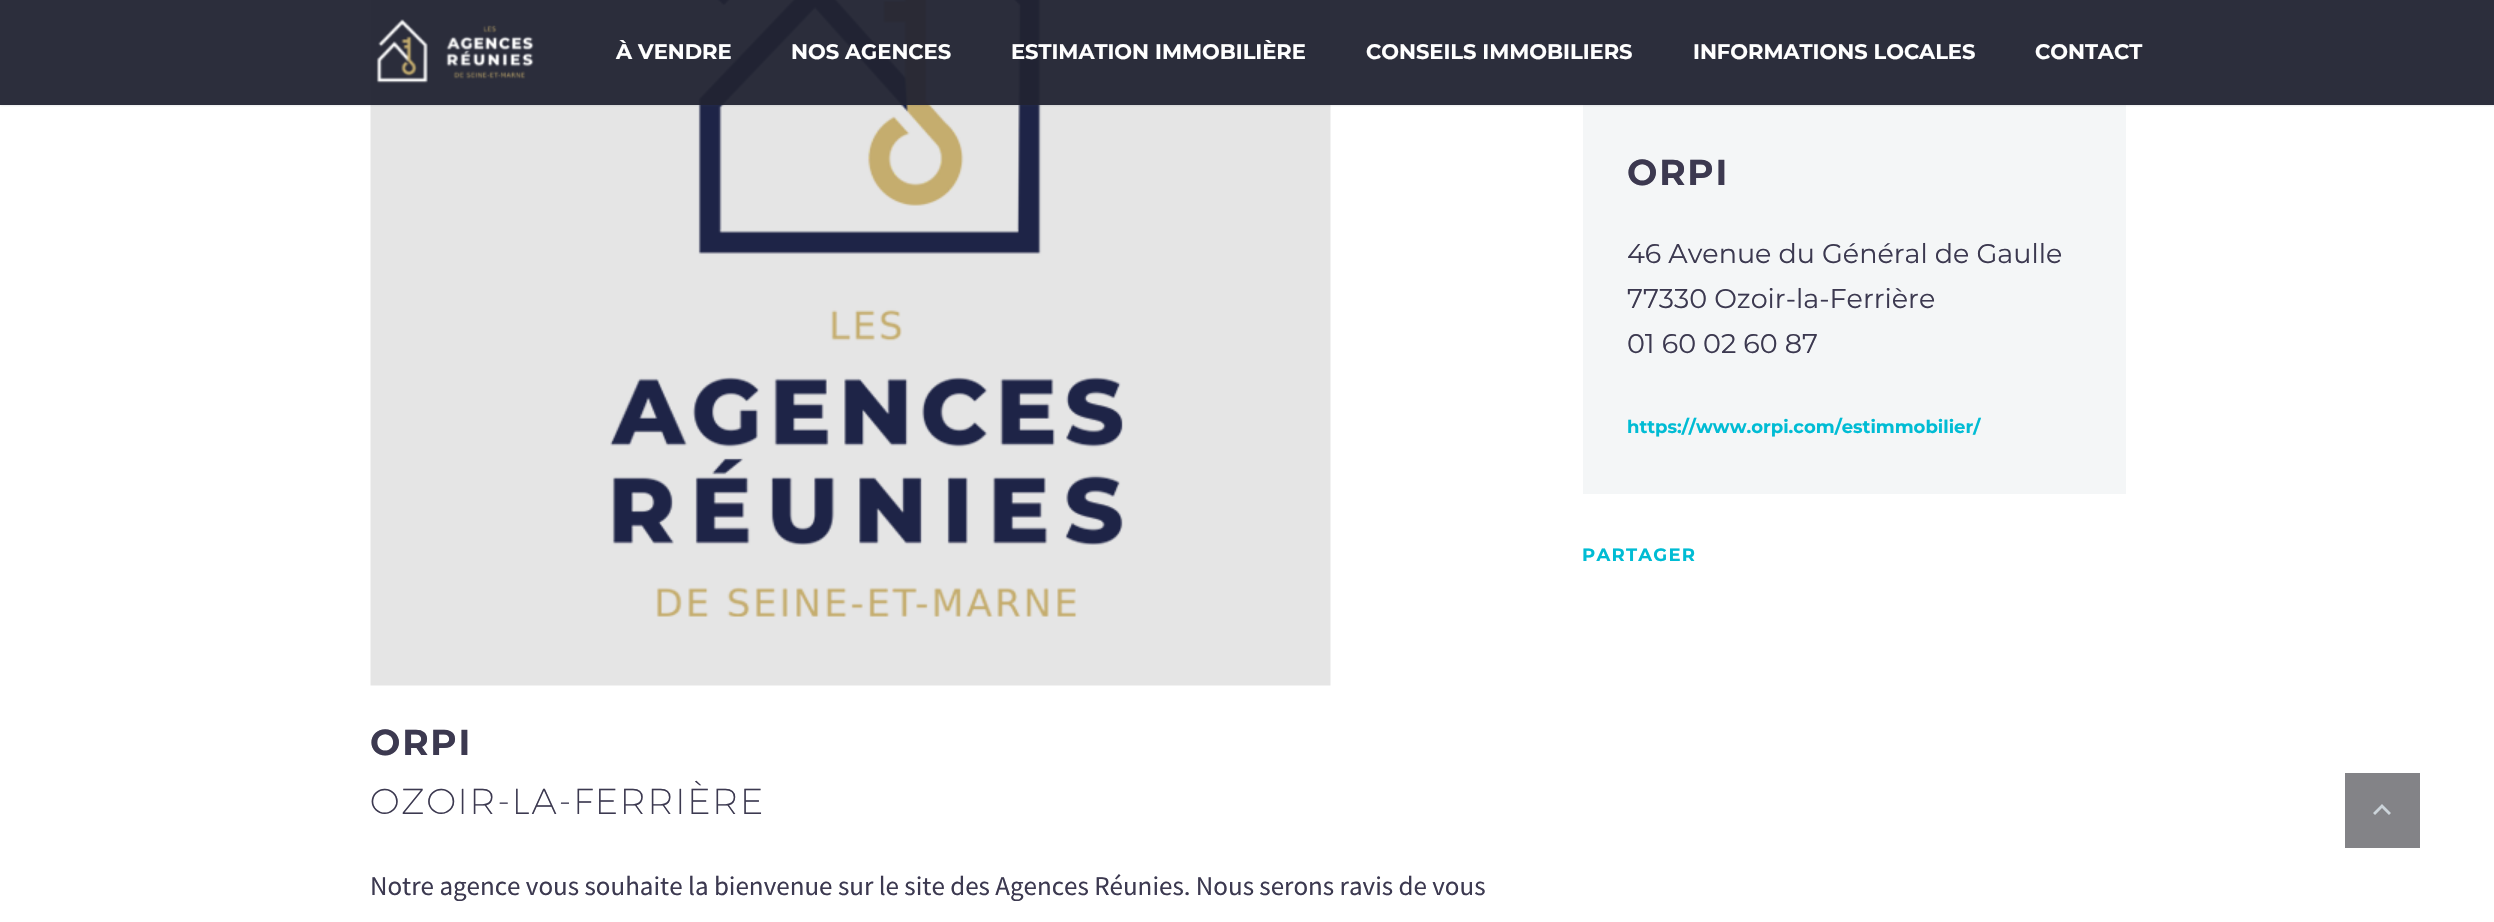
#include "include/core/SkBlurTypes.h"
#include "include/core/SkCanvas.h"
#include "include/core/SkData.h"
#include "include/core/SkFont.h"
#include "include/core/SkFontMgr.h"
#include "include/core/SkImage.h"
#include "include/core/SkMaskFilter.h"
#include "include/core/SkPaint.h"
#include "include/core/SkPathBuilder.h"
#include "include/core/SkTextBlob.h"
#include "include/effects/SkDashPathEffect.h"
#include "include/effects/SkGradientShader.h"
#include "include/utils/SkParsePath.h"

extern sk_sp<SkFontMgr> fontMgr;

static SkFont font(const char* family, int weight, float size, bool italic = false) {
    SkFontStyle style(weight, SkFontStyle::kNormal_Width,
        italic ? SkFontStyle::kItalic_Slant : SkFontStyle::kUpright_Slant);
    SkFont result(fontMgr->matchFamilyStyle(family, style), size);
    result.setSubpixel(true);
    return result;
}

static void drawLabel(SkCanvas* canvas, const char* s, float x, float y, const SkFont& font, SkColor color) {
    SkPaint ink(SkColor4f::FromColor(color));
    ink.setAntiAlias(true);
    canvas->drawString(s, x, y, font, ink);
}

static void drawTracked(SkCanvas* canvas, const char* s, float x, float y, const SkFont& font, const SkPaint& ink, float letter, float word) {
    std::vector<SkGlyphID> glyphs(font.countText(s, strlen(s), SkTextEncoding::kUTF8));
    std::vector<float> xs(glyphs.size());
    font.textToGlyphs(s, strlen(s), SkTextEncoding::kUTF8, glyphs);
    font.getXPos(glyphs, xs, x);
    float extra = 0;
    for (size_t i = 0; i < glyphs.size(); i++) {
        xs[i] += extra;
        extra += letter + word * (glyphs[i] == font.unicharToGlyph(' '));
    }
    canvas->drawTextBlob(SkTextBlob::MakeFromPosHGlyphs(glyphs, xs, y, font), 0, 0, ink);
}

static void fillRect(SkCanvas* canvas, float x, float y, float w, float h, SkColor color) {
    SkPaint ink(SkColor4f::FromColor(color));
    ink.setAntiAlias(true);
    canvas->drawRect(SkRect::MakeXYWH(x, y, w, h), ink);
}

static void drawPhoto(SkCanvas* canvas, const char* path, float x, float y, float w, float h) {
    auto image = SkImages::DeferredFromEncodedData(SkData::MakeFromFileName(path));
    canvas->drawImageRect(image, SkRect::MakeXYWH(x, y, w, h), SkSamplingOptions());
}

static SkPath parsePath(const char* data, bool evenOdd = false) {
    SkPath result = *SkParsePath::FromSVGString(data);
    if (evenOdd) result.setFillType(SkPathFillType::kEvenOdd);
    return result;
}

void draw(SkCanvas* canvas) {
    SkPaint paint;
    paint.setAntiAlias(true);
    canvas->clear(0xFFFFFFFF);
    fillRect(canvas, 1583, 101, 543, 393, 0xFFF4F6F7);
    drawPhoto(canvas, "assets/img2.png", 370, 0, 961, 686);
    canvas->save();
    canvas->clipRect(SkRect::MakeXYWH(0, 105, 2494, 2));
    paint.setColor(0x33384554);
    paint.setMaskFilter(SkMaskFilter::MakeBlur(kNormal_SkBlurStyle, 1.5f));
    canvas->drawRect(SkRect::MakeXYWH(0, 0, 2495, 105), paint);
    paint.setMaskFilter(nullptr);
    canvas->restore();
    fillRect(canvas, 0, 0, 2494, 105, 0xF2212331);
    drawPhoto(canvas, "assets/img1.png", 376, 19, 158, 65);
    SkFont font1 = font("Montserrat", 700, 21);
    drawLabel(canvas, "À VENDRE", 616, 59, font1, 0xFFFFFFFF);
    drawLabel(canvas, "NOS AGENCES", 791, 59, font1, 0xFFFFFFFF);
    drawLabel(canvas, "ESTIMATION IMMOBILIÈRE", 1011, 59, font1, 0xFFFFFFFF);
    drawLabel(canvas, "CONSEILS IMMOBILIERS", 1366, 59, font1, 0xFFFFFFFF);
    drawLabel(canvas, "INFORMATIONS LOCALES", 1693, 59, font1, 0xFFFFFFFF);
    drawLabel(canvas, "CONTACT", 2035, 59, font1, 0xFFFFFFFF);
    SkFont font2 = font("Montserrat", 700, 36);
    paint.setColor(0xFF3C3950);
    drawTracked(canvas, "ORPI", 1627, 185, font2, paint, 1.75f, 0);
    SkFont font3 = font("Montserrat", 400, 27);
    drawLabel(canvas, "46 Avenue du Général de Gaulle", 1627, 263, font3, 0xFF3C3950);
    drawLabel(canvas, "77330 Ozoir-la-Ferrière", 1627, 308, font3, 0xFF3C3950);
    drawLabel(canvas, "01 60 02 60 87", 1627, 353, font3, 0xFF3C3950);
    SkFont font4 = font("Montserrat", 700, 18);
    drawLabel(canvas, "https://www.orpi.com/estimmobilier/", 1627, 433, font4, 0xFF00BCD4);
    paint.setColor(0xFF00BCD4);
    drawTracked(canvas, "PARTAGER", 1582, 561, font4, paint, 1.25f, 0);
    paint.setColor(0xFF3C3950);
    drawTracked(canvas, "ORPI", 370, 755, font2, paint, 1.75f, 0);
    SkFont font5 = font("Montserrat", 200, 36);
    drawTracked(canvas, "OZOIR-LA-FERRIÈRE", 370, 814, font5, paint, 1.75f, 0);
    SkFont font6 = font("Source Sans Pro", 400, 27);
    drawLabel(canvas, "Notre agence vous souhaite la bienvenue sur le site des Agences Réunies. Nous serons ravis de vous", 370, 895, font6, 0xFF3C3950);
    fillRect(canvas, 2345, 773, 75, 75, 0xFF838387);
    paint.setColor(0xFFCCD4DA);
    canvas->drawPath(parsePath("M2375 815L2382 808L2389 815L2391 813L2382 804L2373 813Z"), paint);
}
